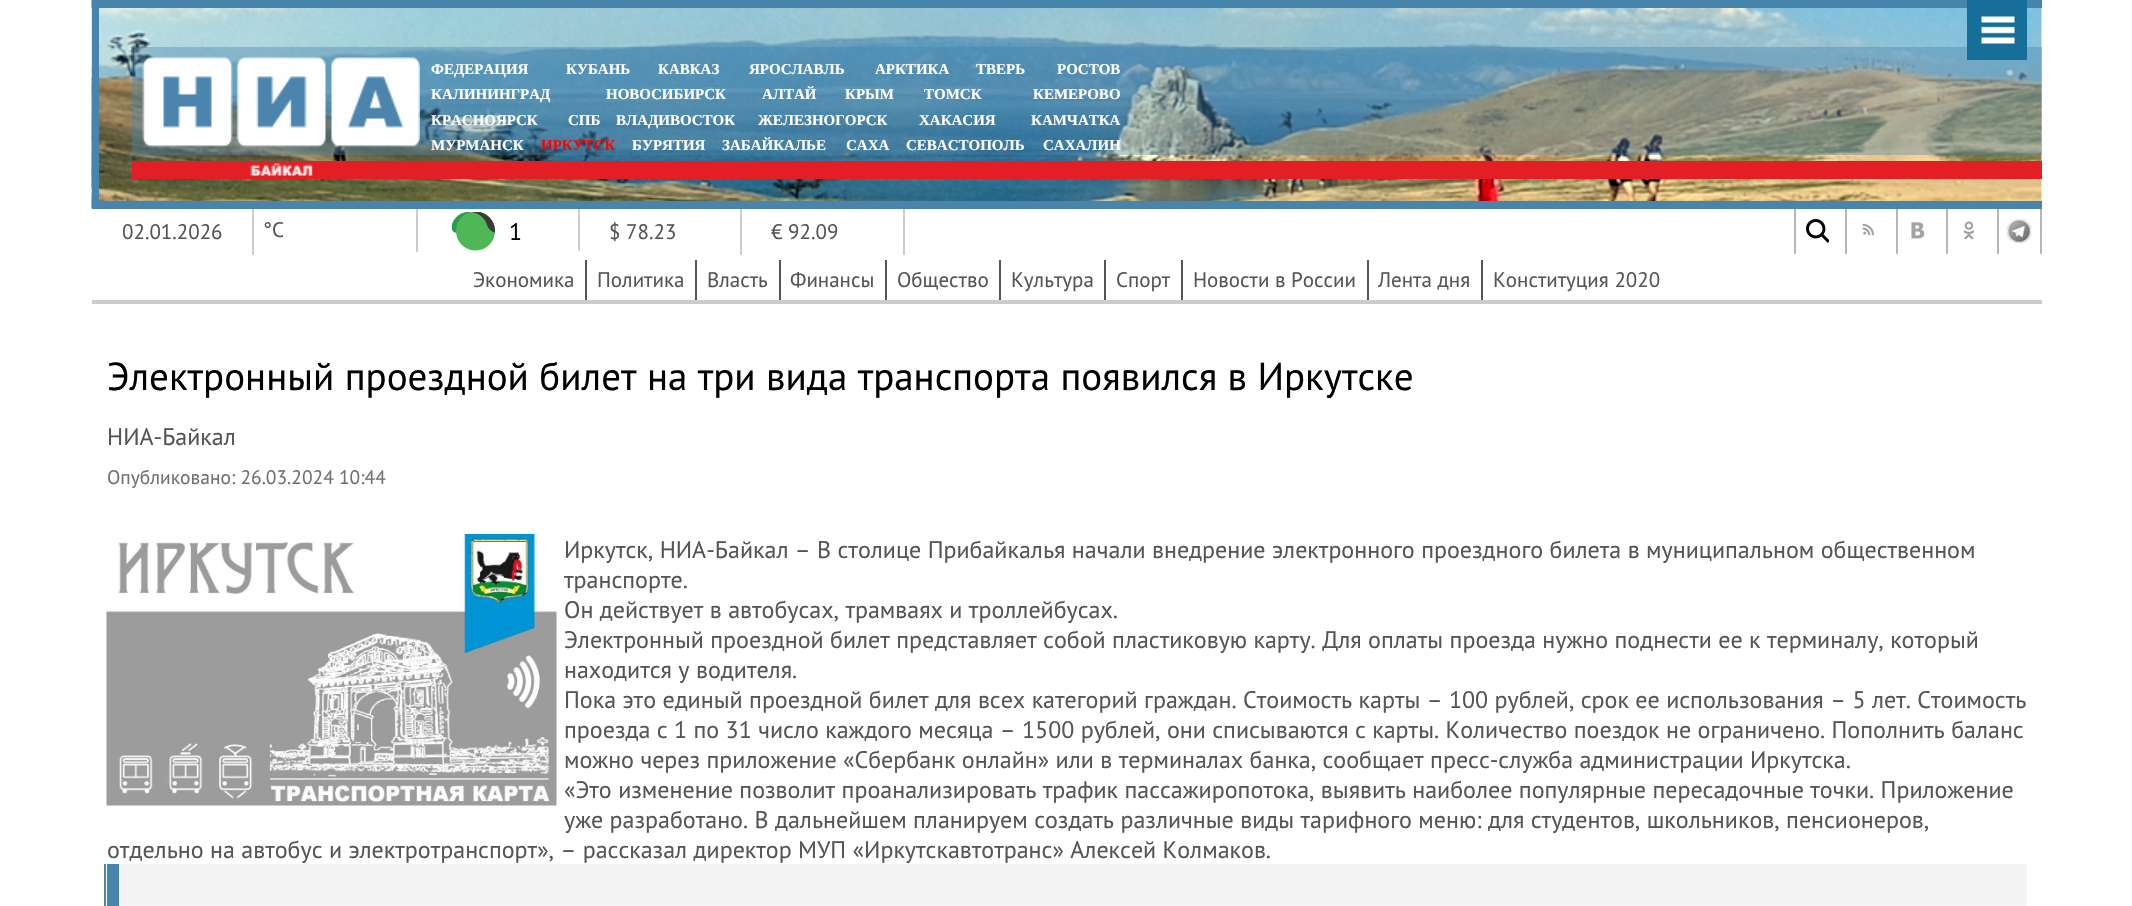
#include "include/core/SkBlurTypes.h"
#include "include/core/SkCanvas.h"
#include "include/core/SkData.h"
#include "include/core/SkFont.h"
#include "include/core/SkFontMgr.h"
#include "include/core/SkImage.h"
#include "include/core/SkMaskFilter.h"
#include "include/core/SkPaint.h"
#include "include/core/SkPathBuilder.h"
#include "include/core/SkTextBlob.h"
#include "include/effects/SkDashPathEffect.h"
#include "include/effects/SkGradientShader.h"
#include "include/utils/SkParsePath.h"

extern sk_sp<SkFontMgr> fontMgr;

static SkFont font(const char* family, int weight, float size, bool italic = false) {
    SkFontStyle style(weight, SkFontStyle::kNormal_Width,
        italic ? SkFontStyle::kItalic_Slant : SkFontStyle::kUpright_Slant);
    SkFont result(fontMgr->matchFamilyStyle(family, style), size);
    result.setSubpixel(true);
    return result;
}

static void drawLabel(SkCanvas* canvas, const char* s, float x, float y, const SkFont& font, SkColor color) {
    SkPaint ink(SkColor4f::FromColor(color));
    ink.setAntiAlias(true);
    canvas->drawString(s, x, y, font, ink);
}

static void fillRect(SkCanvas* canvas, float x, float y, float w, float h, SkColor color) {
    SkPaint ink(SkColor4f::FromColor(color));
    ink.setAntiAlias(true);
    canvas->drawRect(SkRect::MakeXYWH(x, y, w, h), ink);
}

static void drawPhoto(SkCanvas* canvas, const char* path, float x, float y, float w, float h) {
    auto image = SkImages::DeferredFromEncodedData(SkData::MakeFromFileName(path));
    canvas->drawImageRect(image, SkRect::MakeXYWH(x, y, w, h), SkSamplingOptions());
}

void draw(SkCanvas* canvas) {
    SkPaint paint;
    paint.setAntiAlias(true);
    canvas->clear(0xFFFFFFFF);
    drawPhoto(canvas, "assets/img2.png", 91, 0, 1951, 209);
    fillRect(canvas, 92, 0, 1950, 8, 0xFF4885AC);
    fillRect(canvas, 132, 47, 1910, 108, 0x664885AC);
    fillRect(canvas, 1967, 0, 60, 60, 0xFF156F98);
    drawPhoto(canvas, "assets/img1.png", 1981, 16, 34, 28);
    fillRect(canvas, 92, 201, 1950, 8, 0xFF4885AC);
    fillRect(canvas, 92, 0, 7, 209, 0xFF4885AC);
    fillRect(canvas, 132, 161, 1910, 18, 0xFFE31E24);
    drawPhoto(canvas, "assets/img3.png", 142, 57, 278, 119);
    SkFont font1 = font("Liberation Serif", 700, 15);
    drawLabel(canvas, "ФЕДЕРАЦИЯ", 431, 74, font1, 0xFFFFFFFF);
    drawLabel(canvas, "КУБАНЬ", 566, 74, font1, 0xFFFFFFFF);
    drawLabel(canvas, "КАВКАЗ", 658, 74, font1, 0xFFFFFFFF);
    drawLabel(canvas, "ЯРОСЛАВЛЬ", 749, 74, font1, 0xFFFFFFFF);
    drawLabel(canvas, "АРКТИКА", 875, 74, font1, 0xFFFFFFFF);
    drawLabel(canvas, "ТВЕРЬ", 976, 74, font1, 0xFFFFFFFF);
    drawLabel(canvas, "РОСТОВ", 1057, 74, font1, 0xFFFFFFFF);
    drawLabel(canvas, "КАЛИНИНГРАД", 431, 99, font1, 0xFFFFFFFF);
    drawLabel(canvas, "НОВОСИБИРСК", 606, 99, font1, 0xFFFFFFFF);
    drawLabel(canvas, "АЛТАЙ", 762, 99, font1, 0xFFFFFFFF);
    drawLabel(canvas, "КРЫМ", 845, 99, font1, 0xFFFFFFFF);
    drawLabel(canvas, "ТОМСК", 924, 99, font1, 0xFFFFFFFF);
    drawLabel(canvas, "КЕМЕРОВО", 1033, 99, font1, 0xFFFFFFFF);
    drawLabel(canvas, "КРАСНОЯРСК", 431, 125, font1, 0xFFFFFFFF);
    drawLabel(canvas, "СПБ", 568, 125, font1, 0xFFFFFFFF);
    drawLabel(canvas, "ВЛАДИВОСТОК", 616, 125, font1, 0xFFFFFFFF);
    drawLabel(canvas, "ЖЕЛЕЗНОГОРСК", 758, 125, font1, 0xFFFFFFFF);
    drawLabel(canvas, "ХАКАСИЯ", 919, 125, font1, 0xFFFFFFFF);
    drawLabel(canvas, "КАМЧАТКА", 1031, 125, font1, 0xFFFFFFFF);
    drawLabel(canvas, "МУРМАНСК", 431, 150, font1, 0xFFFFFFFF);
    drawLabel(canvas, "ИРКУТСК", 541, 150, font1, 0xFFFF0000);
    drawLabel(canvas, "БУРЯТИЯ", 632, 150, font1, 0xFFFFFFFF);
    drawLabel(canvas, "ЗАБАЙКАЛЬЕ", 722, 150, font1, 0xFFFFFFFF);
    drawLabel(canvas, "САХА", 846, 150, font1, 0xFFFFFFFF);
    drawLabel(canvas, "СЕВАСТОПОЛЬ", 906, 150, font1, 0xFFFFFFFF);
    drawLabel(canvas, "САХАЛИН", 1043, 150, font1, 0xFFFFFFFF);
    fillRect(canvas, 92, 300, 1950, 4, 0xFFCCCCCC);
    fillRect(canvas, 252, 209, 2, 46, 0xFFCCCCCC);
    SkFont font2 = font("PT Sans", 400, 21);
    drawLabel(canvas, "02.01.2026", 122, 239, font2, 0xFF555555);
    fillRect(canvas, 416, 209, 2, 43, 0xFFCCCCCC);
    drawLabel(canvas, "°C", 263, 237, font2, 0xFF555555);
    fillRect(canvas, 578, 209, 2, 42, 0xFFCCCCCC);
    drawPhoto(canvas, "assets/img4.png", 452, 212, 43, 39);
    SkFont font3 = font("PT Sans", 400, 24);
    drawLabel(canvas, "1", 509, 240, font3, 0xFF000000);
    fillRect(canvas, 740, 209, 2, 46, 0xFFCCCCCC);
    drawLabel(canvas, "$ 78.23", 609, 239, font2, 0xFF555555);
    fillRect(canvas, 903, 209, 2, 46, 0xFFCCCCCC);
    drawLabel(canvas, "€ 92.09", 771, 239, font2, 0xFF555555);
    drawPhoto(canvas, "assets/img5.png", 1806, 219, 23, 24);
    fillRect(canvas, 1794, 209, 2, 45, 0xFFBBB5B5);
    drawPhoto(canvas, "assets/img6.png", 1862, 223, 12, 13);
    fillRect(canvas, 1845, 209, 2, 45, 0xFFBBB5B5);
    drawPhoto(canvas, "assets/img7.png", 1911, 222, 14, 17);
    fillRect(canvas, 1896, 209, 2, 45, 0xFFBBB5B5);
    drawPhoto(canvas, "assets/img8.png", 1963, 221, 12, 19);
    fillRect(canvas, 1946, 209, 2, 45, 0xFFBBB5B5);
    drawPhoto(canvas, "assets/img9.png", 2006, 218, 26, 26);
    fillRect(canvas, 2040, 209, 2, 45, 0xFFBBB5B5);
    fillRect(canvas, 1997, 209, 2, 45, 0xFFBBB5B5);
    fillRect(canvas, 585, 260, 2, 40, 0xFF555555);
    drawLabel(canvas, "Экономика", 473, 287, font2, 0xFF555555);
    fillRect(canvas, 695, 260, 2, 40, 0xFF555555);
    drawLabel(canvas, "Политика", 597, 287, font2, 0xFF555555);
    fillRect(canvas, 779, 260, 2, 40, 0xFF555555);
    drawLabel(canvas, "Власть", 707, 287, font2, 0xFF555555);
    fillRect(canvas, 885, 260, 2, 40, 0xFF555555);
    drawLabel(canvas, "Финансы", 790, 287, font2, 0xFF555555);
    fillRect(canvas, 999, 260, 2, 40, 0xFF555555);
    drawLabel(canvas, "Общество", 897, 287, font2, 0xFF555555);
    fillRect(canvas, 1104, 260, 2, 40, 0xFF555555);
    drawLabel(canvas, "Культура", 1011, 287, font2, 0xFF555555);
    fillRect(canvas, 1181, 260, 2, 40, 0xFF555555);
    drawLabel(canvas, "Спорт", 1116, 287, font2, 0xFF555555);
    fillRect(canvas, 1367, 260, 2, 40, 0xFF555555);
    drawLabel(canvas, "Новости в России", 1193, 287, font2, 0xFF555555);
    fillRect(canvas, 1481, 260, 2, 40, 0xFF555555);
    drawLabel(canvas, "Лента дня", 1378, 287, font2, 0xFF555555);
    drawLabel(canvas, "Конституция 2020", 1493, 287, font2, 0xFF555555);
    SkFont font4 = font("PT Sans", 400, 39);
    drawLabel(canvas, "Электронный проездной билет на три вида транспорта появился в Иркутске", 107, 390, font4, 0xFF000000);
    drawLabel(canvas, "НИА-Байкал", 107, 445, font3, 0xFF555555);
    SkFont font5 = font("PT Sans", 400, 19.5f);
    drawLabel(canvas, "Опубликовано: 26.03.2024 10:44", 107, 484, font5, 0xFF717070);
    drawPhoto(canvas, "assets/img10.png", 106, 534, 451, 272);
    drawLabel(canvas, "Иркутск, НИА-Байкал – В столице Прибайкалья начали внедрение электронного проездного билета в муниципальном общественном", 564, 558, font3, 0xFF555555);
    drawLabel(canvas, "транспорте.", 564, 588, font3, 0xFF555555);
    drawLabel(canvas, "Он действует в автобусах, трамваях и троллейбусах.", 564, 618, font3, 0xFF555555);
    drawLabel(canvas, "Электронный проездной билет представляет собой пластиковую карту. Для оплаты проезда нужно поднести ее к терминалу, который", 564, 648, font3, 0xFF555555);
    drawLabel(canvas, "находится у водителя.", 564, 678, font3, 0xFF555555);
    drawLabel(canvas, "Пока это единый проездной билет для всех категорий граждан. Стоимость карты – 100 рублей, срок ее использования – 5 лет. Стоимость", 564, 708, font3, 0xFF555555);
    drawLabel(canvas, "проезда с 1 по 31 число каждого месяца – 1500 рублей, они списываются с карты. Количество поездок не ограничено. Пополнить баланс", 564, 738, font3, 0xFF555555);
    drawLabel(canvas, "можно через приложение «Сбербанк онлайн» или в терминалах банка, сообщает пресс-служба администрации Иркутска.", 564, 768, font3, 0xFF555555);
    drawLabel(canvas, "«Это изменение позволит проанализировать трафик пассажиропотока, выявить наиболее популярные пересадочные точки. Приложение", 564, 798, font3, 0xFF555555);
    drawLabel(canvas, "уже разработано. В дальнейшем планируем создать различные виды тарифного меню: для студентов, школьников, пенсионеров,", 564, 828, font3, 0xFF555555);
    drawLabel(canvas, "отдельно на автобус и электротранспорт», – рассказал директор МУП «Иркутскавтотранс» Алексей Колмаков.", 107, 858, font3, 0xFF555555);
    fillRect(canvas, 104, 864, 2, 42, 0xFF4885AC);
    fillRect(canvas, 119, 864, 1908, 42, 0xFFF4F4F4);
    fillRect(canvas, 107, 864, 12, 42, 0xFF4885AC);
}
